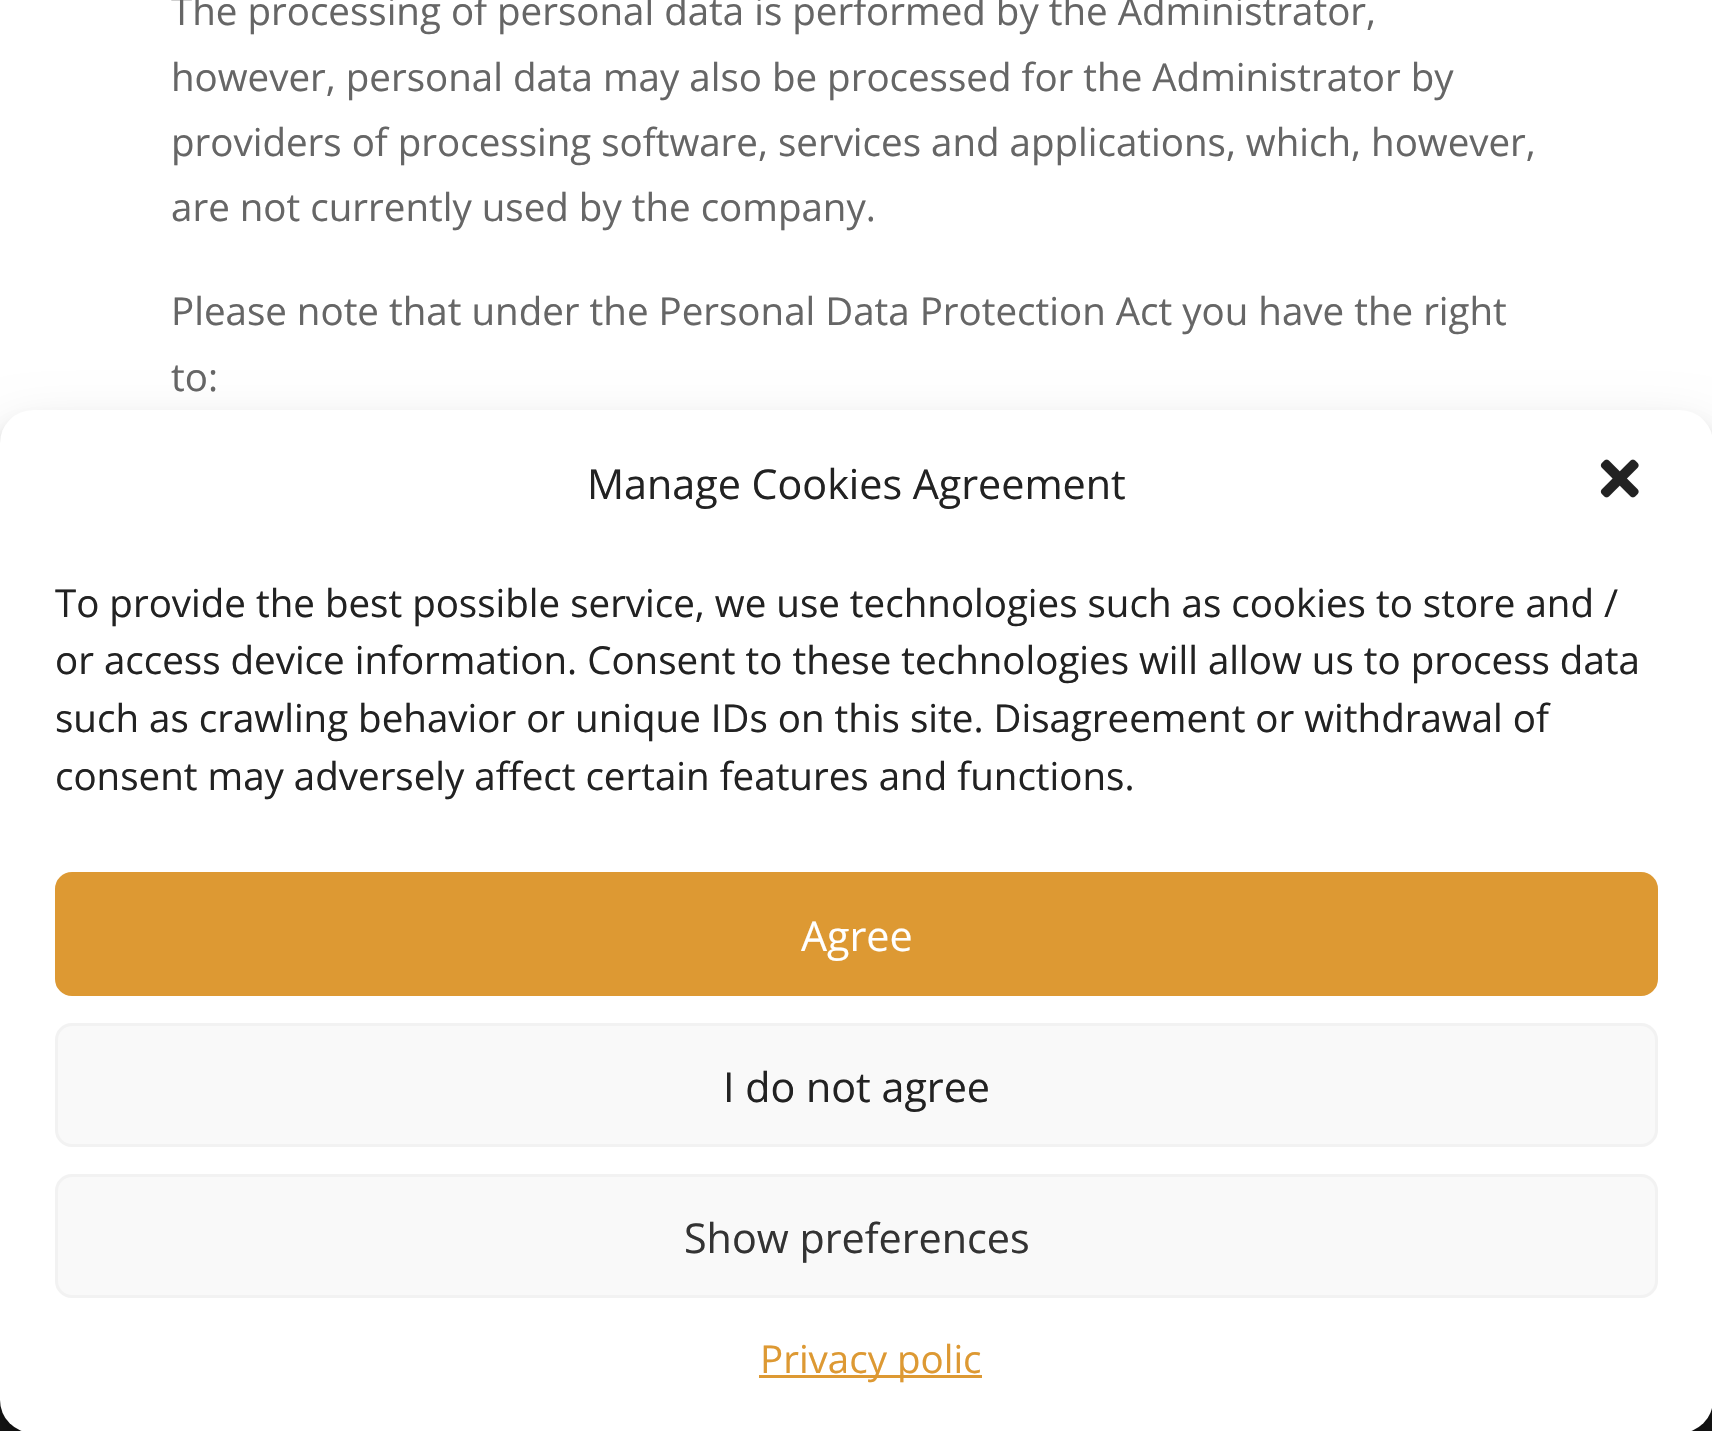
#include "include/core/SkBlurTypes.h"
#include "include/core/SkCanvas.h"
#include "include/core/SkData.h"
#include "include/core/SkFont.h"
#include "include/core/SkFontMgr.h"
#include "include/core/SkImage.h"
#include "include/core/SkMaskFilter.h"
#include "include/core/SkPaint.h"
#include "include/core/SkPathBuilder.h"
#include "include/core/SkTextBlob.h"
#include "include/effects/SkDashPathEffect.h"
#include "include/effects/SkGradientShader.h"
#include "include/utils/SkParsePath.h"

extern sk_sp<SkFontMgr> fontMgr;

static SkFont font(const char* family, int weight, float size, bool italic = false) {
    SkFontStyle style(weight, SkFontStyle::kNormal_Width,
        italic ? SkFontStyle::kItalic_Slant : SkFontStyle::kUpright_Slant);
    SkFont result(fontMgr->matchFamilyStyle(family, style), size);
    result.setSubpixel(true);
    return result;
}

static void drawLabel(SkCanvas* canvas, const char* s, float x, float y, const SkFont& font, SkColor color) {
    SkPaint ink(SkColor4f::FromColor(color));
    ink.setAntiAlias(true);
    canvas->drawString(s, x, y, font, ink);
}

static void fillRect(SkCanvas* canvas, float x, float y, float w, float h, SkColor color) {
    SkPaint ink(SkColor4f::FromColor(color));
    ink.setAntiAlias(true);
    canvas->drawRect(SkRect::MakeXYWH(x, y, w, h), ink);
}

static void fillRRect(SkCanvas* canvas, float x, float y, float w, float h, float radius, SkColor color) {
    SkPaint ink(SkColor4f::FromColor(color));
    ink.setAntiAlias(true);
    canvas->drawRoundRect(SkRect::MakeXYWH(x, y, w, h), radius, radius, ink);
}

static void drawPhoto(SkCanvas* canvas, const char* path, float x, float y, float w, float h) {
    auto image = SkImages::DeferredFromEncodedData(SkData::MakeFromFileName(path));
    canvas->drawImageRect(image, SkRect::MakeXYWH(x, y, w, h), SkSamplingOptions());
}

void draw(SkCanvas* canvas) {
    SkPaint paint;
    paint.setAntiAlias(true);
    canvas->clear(0xFFFFFFFF);
    SkFont font1 = font("Open Sans", 400, 38.5f);
    drawLabel(canvas, "The processing of personal data is performed by the Administrator,", 171, 25, font1, 0xFF666666);
    drawLabel(canvas, "however, personal data may also be processed for the Administrator by", 171, 91, font1, 0xFF666666);
    drawLabel(canvas, "providers of processing software, services and applications, which, however,", 171, 156, font1, 0xFF666666);
    drawLabel(canvas, "are not currently used by the company.", 171, 221, font1, 0xFF666666);
    drawLabel(canvas, "Please note that under the Personal Data Protection Act you have the right", 171, 325, font1, 0xFF666666);
    drawLabel(canvas, "to:", 171, 391, font1, 0xFF666666);
    fillRect(canvas, 0, 1400, 1712, 31, 0xFF171717);
    paint.setColor(0x3B000000);
    paint.setMaskFilter(SkMaskFilter::MakeBlur(kNormal_SkBlurStyle, 8));
    canvas->drawRoundRect(SkRect::MakeXYWH(0, 426, 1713, 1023), 33, 33, paint);
    paint.setMaskFilter(nullptr);
    paint.setColor(0x30000000);
    paint.setMaskFilter(SkMaskFilter::MakeBlur(kNormal_SkBlurStyle, 27.5f));
    canvas->drawRoundRect(SkRect::MakeXYWH(0, 437, 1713, 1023), 33, 33, paint);
    paint.setMaskFilter(nullptr);
    fillRRect(canvas, 0, 410, 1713, 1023, 33, 0xFFFFFFFF);
    SkFont font2 = font("Open Sans", 400, 41.25f);
    drawLabel(canvas, "Manage Cookies Agreement", 587, 499, font2, 0xFF222222);
    drawPhoto(canvas, "assets/img1.png", 1600, 459, 39, 39);
    drawLabel(canvas, "To provide the best possible service, we use technologies such as cookies to store and /", 55, 617, font1, 0xFF222222);
    drawLabel(canvas, "or access device information. Consent to these technologies will allow us to process data", 55, 674, font1, 0xFF222222);
    drawLabel(canvas, "such as crawling behavior or unique IDs on this site. Disagreement or withdrawal of", 55, 732, font1, 0xFF222222);
    drawLabel(canvas, "consent may adversely affect certain features and functions.", 55, 790, font1, 0xFF222222);
    paint.setColor(0xFFDD9933);
    canvas->drawRoundRect(SkRect::MakeXYWH(56.5f, 873.5f, 1600, 121), 15.5f, 15.5f, paint);
    paint.setStroke(true);
    paint.setStrokeWidth(3);
    canvas->drawRoundRect(SkRect::MakeXYWH(56.5f, 873.5f, 1600, 121), 15.5f, 15.5f, paint);
    drawLabel(canvas, "Agree", 801, 951, font2, 0xFFFFFFFF);
    paint.setStroke(false);
    paint.setColor(0xFFF9F9F9);
    canvas->drawRoundRect(SkRect::MakeXYWH(56.5f, 1024.5f, 1600, 121), 15.5f, 15.5f, paint);
    paint.setStroke(true);
    paint.setColor(0xFFF2F2F2);
    canvas->drawRoundRect(SkRect::MakeXYWH(56.5f, 1024.5f, 1600, 121), 15.5f, 15.5f, paint);
    drawLabel(canvas, "I do not agree", 723, 1102, font2, 0xFF222222);
    paint.setStroke(false);
    paint.setColor(0xFFF9F9F9);
    canvas->drawRoundRect(SkRect::MakeXYWH(56.5f, 1175.5f, 1600, 121), 15.5f, 15.5f, paint);
    paint.setStroke(true);
    paint.setColor(0xFFF2F2F2);
    canvas->drawRoundRect(SkRect::MakeXYWH(56.5f, 1175.5f, 1600, 121), 15.5f, 15.5f, paint);
    drawLabel(canvas, "Show preferences", 684, 1253, font2, 0xFF333333);
    fillRect(canvas, 759, 1375, 223, 3, 0xFFDD9933);
    drawLabel(canvas, "Privacy polic", 760, 1373, font1, 0xFFDD9933);
}
